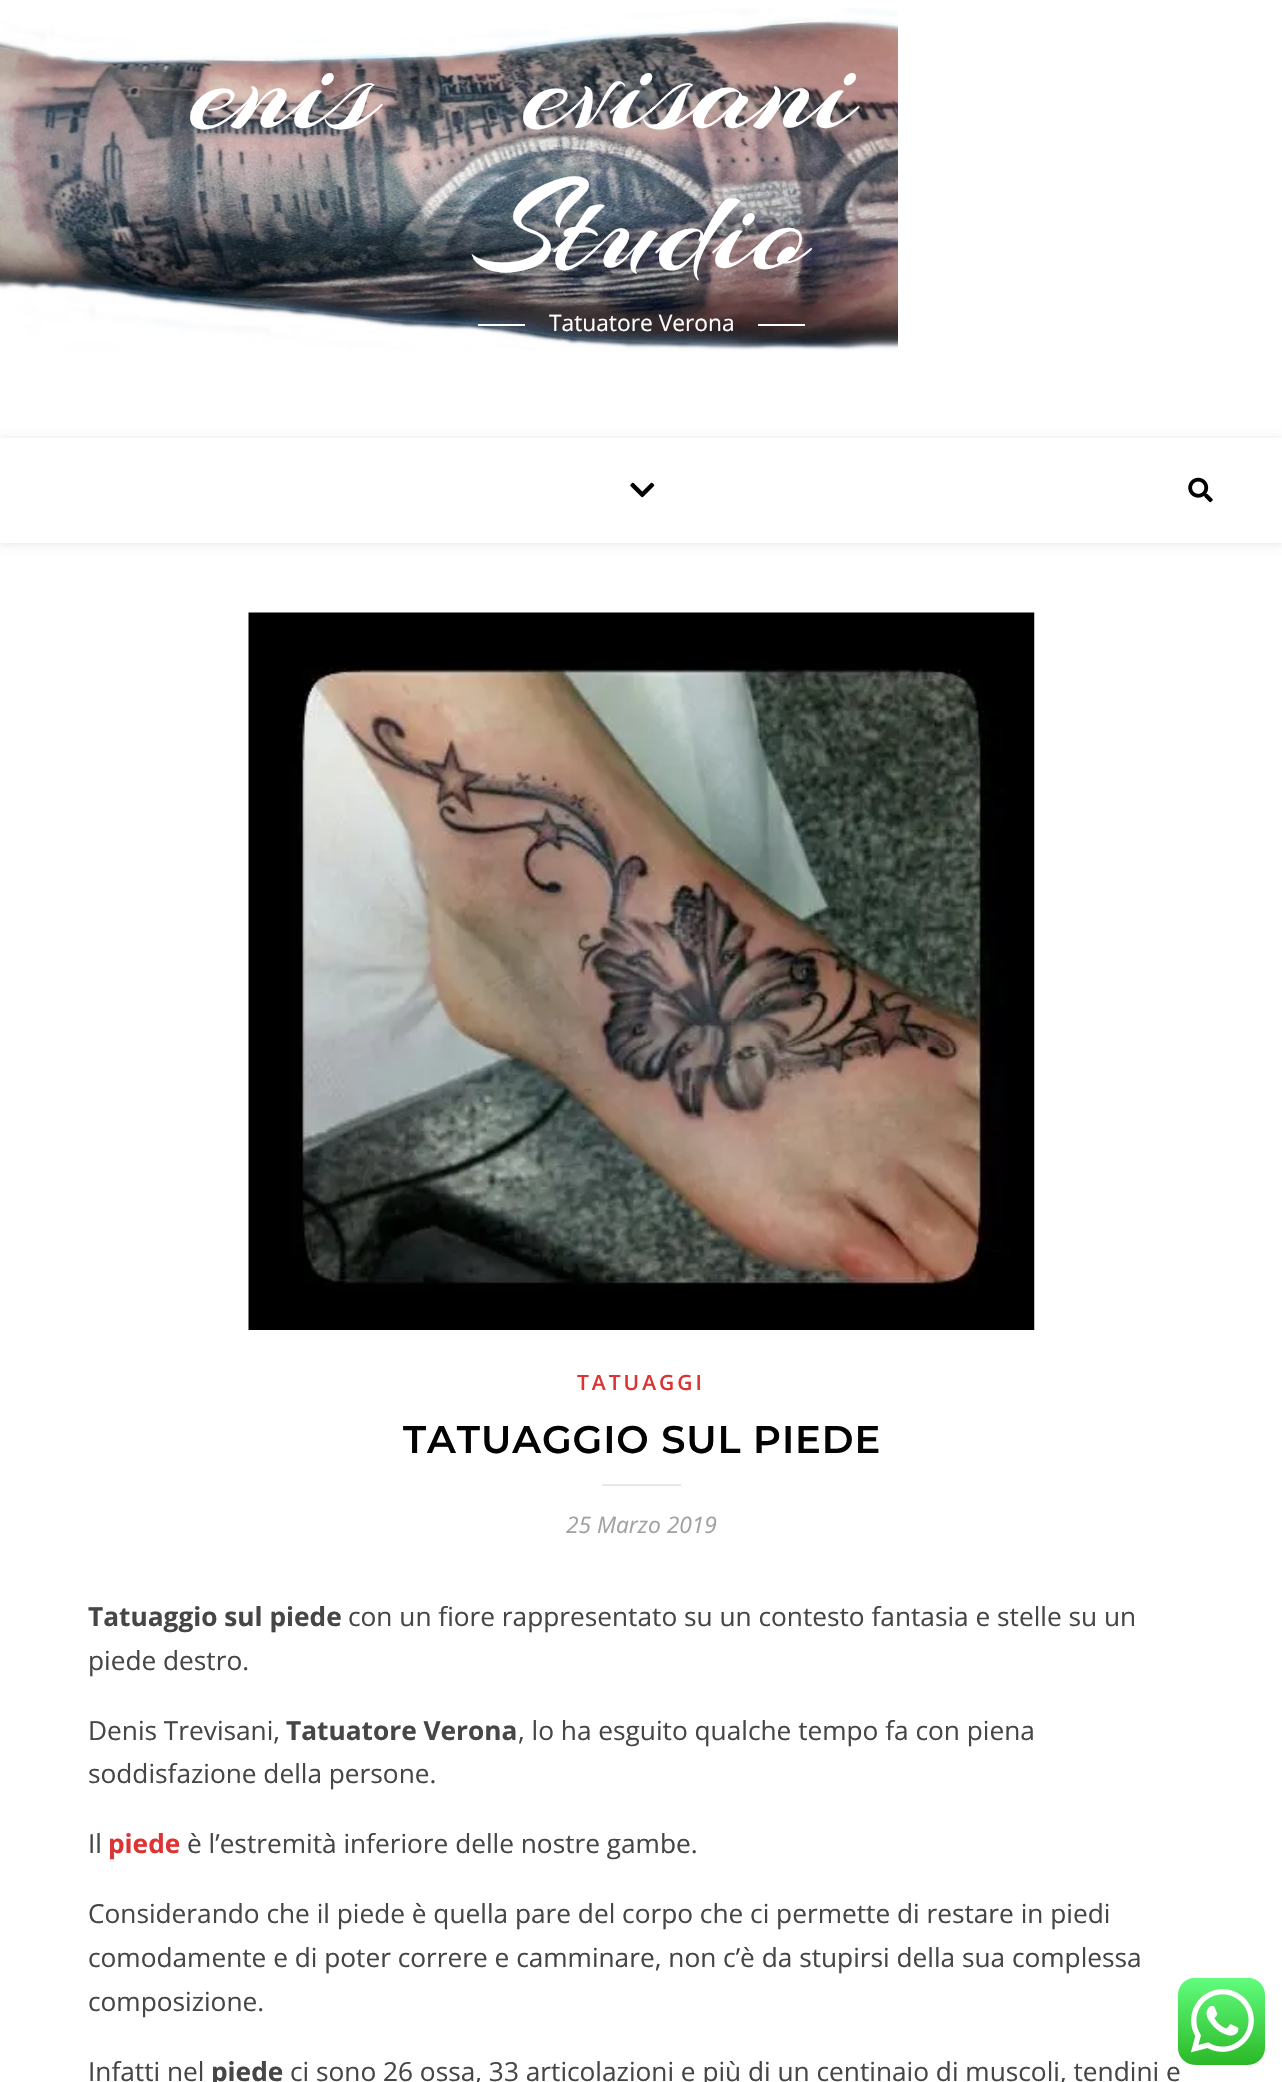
#include "include/core/SkBlurTypes.h"
#include "include/core/SkCanvas.h"
#include "include/core/SkData.h"
#include "include/core/SkFont.h"
#include "include/core/SkFontMgr.h"
#include "include/core/SkImage.h"
#include "include/core/SkMaskFilter.h"
#include "include/core/SkPaint.h"
#include "include/core/SkPathBuilder.h"
#include "include/core/SkTextBlob.h"
#include "include/effects/SkDashPathEffect.h"
#include "include/effects/SkGradientShader.h"
#include "include/utils/SkParsePath.h"

extern sk_sp<SkFontMgr> fontMgr;

static SkFont font(const char* family, int weight, float size, bool italic = false) {
    SkFontStyle style(weight, SkFontStyle::kNormal_Width,
        italic ? SkFontStyle::kItalic_Slant : SkFontStyle::kUpright_Slant);
    SkFont result(fontMgr->matchFamilyStyle(family, style), size);
    result.setSubpixel(true);
    return result;
}

static void drawLabel(SkCanvas* canvas, const char* s, float x, float y, const SkFont& font, SkColor color) {
    SkPaint ink(SkColor4f::FromColor(color));
    ink.setAntiAlias(true);
    canvas->drawString(s, x, y, font, ink);
}

static void drawTracked(SkCanvas* canvas, const char* s, float x, float y, const SkFont& font, const SkPaint& ink, float letter, float word) {
    std::vector<SkGlyphID> glyphs(font.countText(s, strlen(s), SkTextEncoding::kUTF8));
    std::vector<float> xs(glyphs.size());
    font.textToGlyphs(s, strlen(s), SkTextEncoding::kUTF8, glyphs);
    font.getXPos(glyphs, xs, x);
    float extra = 0;
    for (size_t i = 0; i < glyphs.size(); i++) {
        xs[i] += extra;
        extra += letter + word * (glyphs[i] == font.unicharToGlyph(' '));
    }
    canvas->drawTextBlob(SkTextBlob::MakeFromPosHGlyphs(glyphs, xs, y, font), 0, 0, ink);
}

static void fillRect(SkCanvas* canvas, float x, float y, float w, float h, SkColor color) {
    SkPaint ink(SkColor4f::FromColor(color));
    ink.setAntiAlias(true);
    canvas->drawRect(SkRect::MakeXYWH(x, y, w, h), ink);
}

static void drawPhoto(SkCanvas* canvas, const char* path, float x, float y, float w, float h) {
    auto image = SkImages::DeferredFromEncodedData(SkData::MakeFromFileName(path));
    canvas->drawImageRect(image, SkRect::MakeXYWH(x, y, w, h), SkSamplingOptions());
}

void draw(SkCanvas* canvas) {
    SkPaint paint;
    paint.setAntiAlias(true);
    canvas->clear(0xFFFFFFFF);
    drawPhoto(canvas, "assets/img1.png", 0, 8, 898, 343);
    SkFont font1 = font("Arizonia", 400, 140);
    drawLabel(canvas, "enis", 191, 128, font1, 0xFFFFFFFF);
    drawLabel(canvas, "evisani", 524, 128, font1, 0xFFFFFFFF);
    drawLabel(canvas, "Studio", 474, 268, font1, 0xFFFFFFFF);
    fillRect(canvas, 478, 324, 47, 2, 0xFFFFFFFF);
    SkFont font2 = font("Open Sans", 400, 22.75f);
    drawLabel(canvas, "Tatuatore Verona", 549, 331, font2, 0xFFFFFFFF);
    fillRect(canvas, 758, 324, 47, 2, 0xFFFFFFFF);
    paint.setColor(0x1A000000);
    paint.setMaskFilter(SkMaskFilter::MakeBlur(kNormal_SkBlurStyle, 4.5f));
    canvas->drawRect(SkRect::MakeXYWH(0, 439, 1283, 105), paint);
    paint.setMaskFilter(nullptr);
    fillRect(canvas, 0, 438, 1282, 105, 0xFFFFFFFF);
    drawPhoto(canvas, "assets/img2.png", 630, 482, 25, 16);
    drawPhoto(canvas, "assets/img3.png", 1188, 477, 25, 26);
    drawPhoto(canvas, "assets/img4.png", 248, 612, 787, 718);
    SkFont font3 = font("Open Sans", 600, 21);
    paint.setColor(0xFFDD3333);
    drawTracked(canvas, "TATUAGGI", 577, 1390, font3, paint, 3, 0);
    SkFont font4 = font("Montserrat", 600, 38.5f);
    paint.setColor(0xFF030303);
    drawTracked(canvas, "TATUAGGIO SUL PIEDE", 403, 1453, font4, paint, 0.9f, 0);
    fillRect(canvas, 602, 1484, 79, 2, 0xFFE8E8E8);
    SkFont font5 = font("Open Sans", 400, 22.75f, true);
    drawLabel(canvas, "25 Marzo 2019", 566, 1533, font5, 0xFFA1A1A1);
    SkFont font6 = font("Open Sans", 700, 26.25f);
    drawLabel(canvas, "Tatuaggio sul piede", 88, 1626, font6, 0xFF464646);
    SkFont font7 = font("Open Sans", 400, 26.25f);
    drawLabel(canvas, "con un fiore rappresentato su un contesto fantasia e stelle su un", 348, 1626, font7, 0xFF464646);
    drawLabel(canvas, "piede destro.", 88, 1670, font7, 0xFF464646);
    drawLabel(canvas, "Denis Trevisani,", 88, 1740, font7, 0xFF464646);
    drawLabel(canvas, "Tatuatore Verona", 286, 1740, font6, 0xFF464646);
    drawLabel(canvas, ", lo ha esguito qualche tempo fa con piena", 518, 1740, font7, 0xFF464646);
    drawLabel(canvas, "soddisfazione della persone.", 88, 1783, font7, 0xFF464646);
    drawLabel(canvas, "Il", 88, 1853, font7, 0xFF464646);
    drawLabel(canvas, "piede", 108, 1853, font6, 0xFFDD3333);
    drawLabel(canvas, "è l’estremità inferiore delle nostre gambe.", 187, 1853, font7, 0xFF464646);
    drawLabel(canvas, "Considerando che il piede è quella pare del corpo che ci permette di restare in piedi", 88, 1923, font7, 0xFF464646);
    drawLabel(canvas, "comodamente e di poter correre e camminare, non c’è da stupirsi della sua complessa", 88, 1967, font7, 0xFF464646);
    drawLabel(canvas, "composizione.", 88, 2011, font7, 0xFF464646);
    drawLabel(canvas, "Infatti nel", 88, 2081, font7, 0xFF464646);
    drawLabel(canvas, "piede", 211, 2081, font6, 0xFF464646);
    drawLabel(canvas, "ci sono 26 ossa, 33 articolazioni e più di un centinaio di muscoli, tendini e", 290, 2081, font7, 0xFF464646);
    drawPhoto(canvas, "assets/img5.png", 1178, 1978, 87, 87);
}
